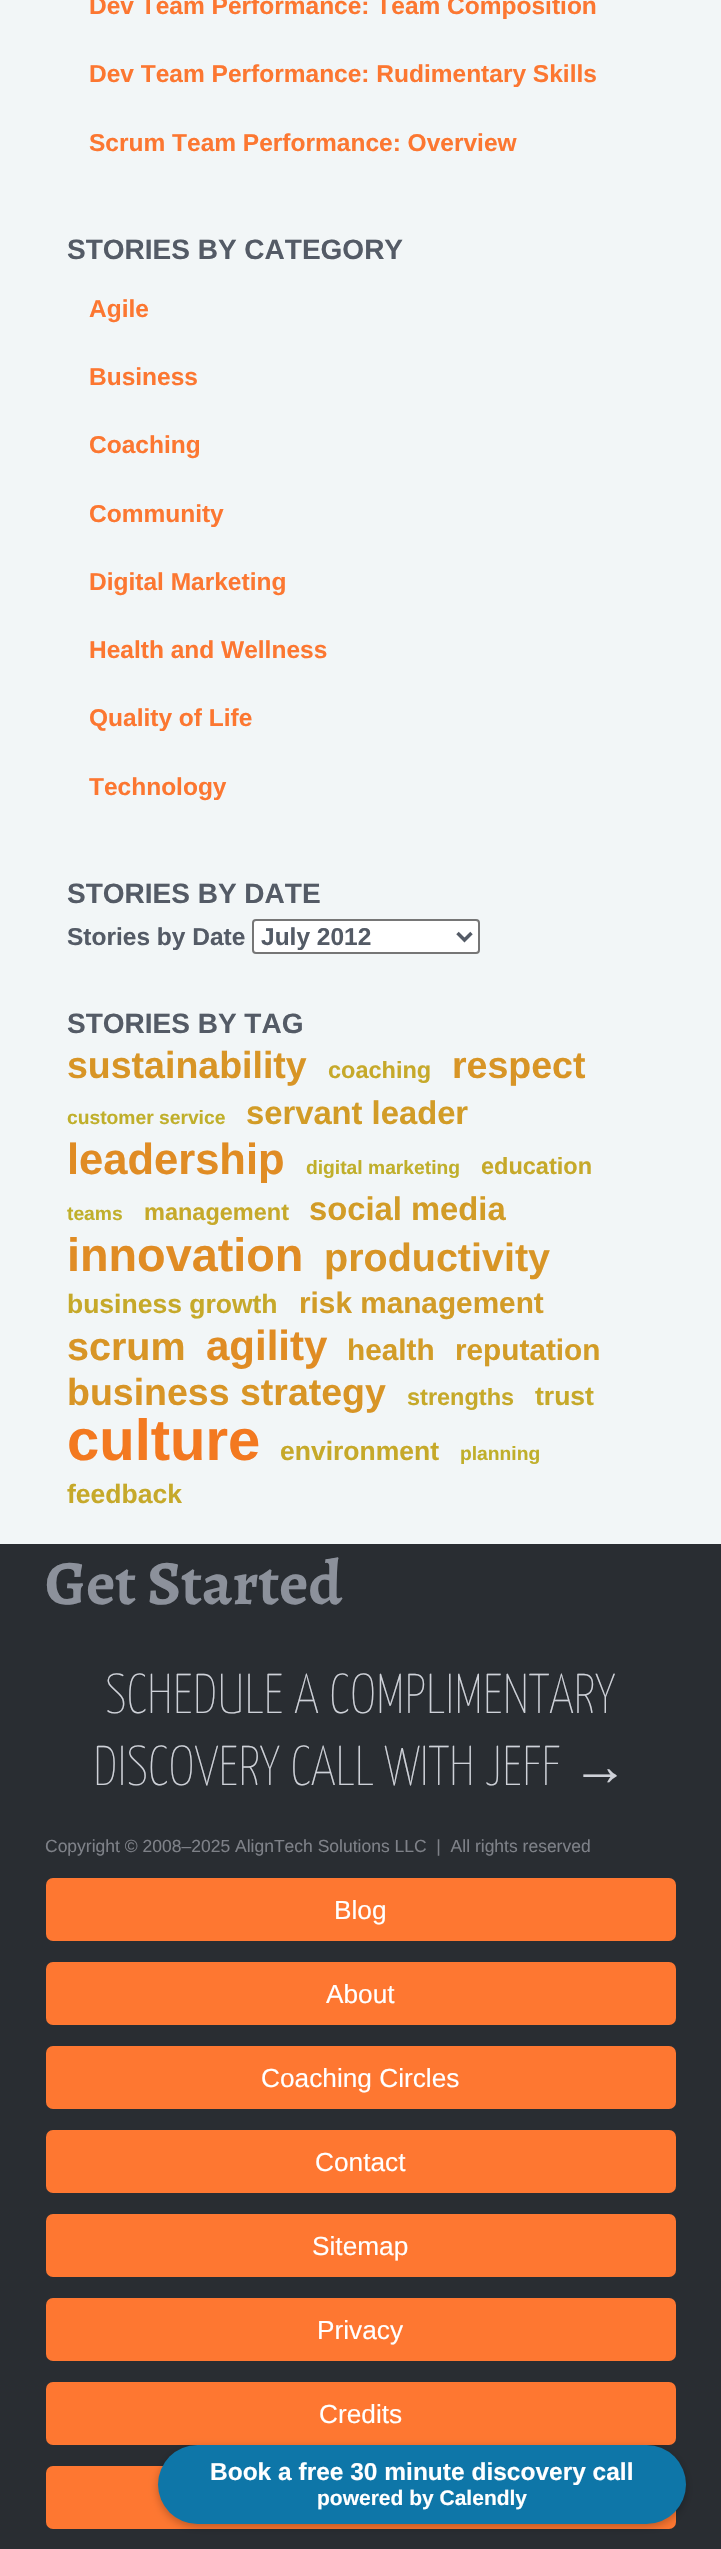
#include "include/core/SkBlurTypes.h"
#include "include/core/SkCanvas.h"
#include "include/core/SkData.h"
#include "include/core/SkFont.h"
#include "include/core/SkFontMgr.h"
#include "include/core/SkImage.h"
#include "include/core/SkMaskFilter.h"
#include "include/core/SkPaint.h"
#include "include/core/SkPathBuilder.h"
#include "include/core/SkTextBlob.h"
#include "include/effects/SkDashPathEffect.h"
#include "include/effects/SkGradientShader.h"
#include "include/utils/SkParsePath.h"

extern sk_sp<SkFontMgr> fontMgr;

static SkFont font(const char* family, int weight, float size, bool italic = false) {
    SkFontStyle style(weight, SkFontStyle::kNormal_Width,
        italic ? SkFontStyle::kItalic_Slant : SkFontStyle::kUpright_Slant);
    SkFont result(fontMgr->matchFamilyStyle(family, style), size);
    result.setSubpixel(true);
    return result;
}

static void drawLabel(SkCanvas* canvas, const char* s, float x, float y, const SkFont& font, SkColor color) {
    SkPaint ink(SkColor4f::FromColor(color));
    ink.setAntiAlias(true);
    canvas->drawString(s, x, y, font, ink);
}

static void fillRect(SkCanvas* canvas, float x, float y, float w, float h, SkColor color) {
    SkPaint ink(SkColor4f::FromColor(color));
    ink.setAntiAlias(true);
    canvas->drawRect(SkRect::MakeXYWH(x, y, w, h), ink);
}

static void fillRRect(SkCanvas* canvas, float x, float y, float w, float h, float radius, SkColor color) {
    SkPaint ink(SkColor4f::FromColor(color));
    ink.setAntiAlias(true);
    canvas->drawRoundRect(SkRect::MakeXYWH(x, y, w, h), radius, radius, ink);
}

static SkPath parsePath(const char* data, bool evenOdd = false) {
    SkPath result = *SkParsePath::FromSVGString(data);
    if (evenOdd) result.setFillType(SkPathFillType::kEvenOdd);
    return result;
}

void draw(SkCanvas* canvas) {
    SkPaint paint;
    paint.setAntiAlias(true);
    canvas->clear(0xFF292D32);
    fillRect(canvas, 0, 0, 721, 1544, 0xFFF2F6F7);
    SkFont font1 = font("Liberation Sans", 700, 24.5f);
    drawLabel(canvas, "Dev Team Performance: Team Composition", 89, 14, font1, 0xFFFC7731);
    drawLabel(canvas, "Dev Team Performance: Rudimentary Skills", 89, 82, font1, 0xFFFC7731);
    drawLabel(canvas, "Scrum Team Performance: Overview", 89, 151, font1, 0xFFFC7731);
    SkFont font2 = font("Liberation Sans", 700, 28);
    drawLabel(canvas, "STORIES BY CATEGORY", 67, 259, font2, 0xFF545B66);
    drawLabel(canvas, "Agile", 89, 317, font1, 0xFFFC7731);
    drawLabel(canvas, "Business", 89, 385, font1, 0xFFFC7731);
    drawLabel(canvas, "Coaching", 89, 453, font1, 0xFFFC7731);
    drawLabel(canvas, "Community", 89, 522, font1, 0xFFFC7731);
    drawLabel(canvas, "Digital Marketing", 89, 590, font1, 0xFFFC7731);
    drawLabel(canvas, "Health and Wellness", 89, 658, font1, 0xFFFC7731);
    drawLabel(canvas, "Quality of Life", 89, 726, font1, 0xFFFC7731);
    drawLabel(canvas, "Technology", 89, 795, font1, 0xFFFC7731);
    drawLabel(canvas, "STORIES BY DATE", 67, 903, font2, 0xFF545B66);
    drawLabel(canvas, "Stories by Date", 67, 945, font1, 0xFF545B66);
    paint.setColor(0xFFFFFFFF);
    canvas->drawRoundRect(SkRect::MakeXYWH(253, 920, 226, 33), 3, 3, paint);
    paint.setStroke(true);
    paint.setStrokeWidth(2);
    paint.setColor(0xFF767676);
    canvas->drawRoundRect(SkRect::MakeXYWH(253, 920, 226, 33), 3, 3, paint);
    paint.setStrokeWidth(3.5f);
    paint.setColor(0xFF545B66);
    canvas->drawPath(parsePath("M457.5 933L464.5 940L471.5 933"), paint);
    drawLabel(canvas, "July 2012", 261, 945, font1, 0xFF545B66);
    drawLabel(canvas, "STORIES BY TAG", 67, 1033, font2, 0xFF545B66);
    SkFont font3 = font("Liberation Sans", 700, 37.5f);
    drawLabel(canvas, "sustainability", 67, 1078, font3, 0xFFD89526);
    SkFont font4 = font("Liberation Sans", 700, 23.5f);
    drawLabel(canvas, "coaching", 328, 1078, font4, 0xFFC6A92A);
    drawLabel(canvas, "respect", 452, 1078, font3, 0xFFD89526);
    SkFont font5 = font("Liberation Sans", 700, 19.25f);
    drawLabel(canvas, "customer service", 67, 1124, font5, 0xFFC0AF2B);
    SkFont font6 = font("Liberation Sans", 700, 32.75f);
    drawLabel(canvas, "servant leader", 246, 1124, font6, 0xFFD29C27);
    SkFont font7 = font("Liberation Sans", 700, 43.5f);
    drawLabel(canvas, "leadership", 67, 1174, font7, 0xFFE08C24);
    drawLabel(canvas, "digital marketing", 306, 1174, font5, 0xFFC0AF2B);
    drawLabel(canvas, "education", 481, 1174, font4, 0xFFC6A92A);
    drawLabel(canvas, "teams", 67, 1220, font5, 0xFFC0AF2B);
    drawLabel(canvas, "management", 144, 1220, font4, 0xFFC6A92A);
    drawLabel(canvas, "social media", 309, 1220, font6, 0xFFD29C27);
    SkFont font8 = font("Liberation Sans", 700, 46.75f);
    drawLabel(canvas, "innovation", 67, 1271, font8, 0xFFE08C24);
    SkFont font9 = font("Liberation Sans", 700, 39.5f);
    drawLabel(canvas, "productivity", 324, 1271, font9, 0xFFD89526);
    SkFont font10 = font("Liberation Sans", 700, 26.5f);
    drawLabel(canvas, "business growth", 67, 1313, font10, 0xFFC6A92A);
    SkFont font11 = font("Liberation Sans", 700, 29.75f);
    drawLabel(canvas, "risk management", 299, 1313, font11, 0xFFD29C27);
    drawLabel(canvas, "scrum", 67, 1360, font9, 0xFFD89526);
    SkFont font12 = font("Liberation Sans", 700, 42);
    drawLabel(canvas, "agility", 206, 1360, font12, 0xFFE08C24);
    drawLabel(canvas, "health", 347, 1360, font11, 0xFFD29C27);
    drawLabel(canvas, "reputation", 455, 1360, font11, 0xFFD29C27);
    drawLabel(canvas, "business strategy", 67, 1405, font3, 0xFFD89526);
    drawLabel(canvas, "strengths", 407, 1405, font4, 0xFFC6A92A);
    drawLabel(canvas, "trust", 535, 1405, font10, 0xFFC6A92A);
    SkFont font13 = font("Liberation Sans", 700, 58);
    drawLabel(canvas, "culture", 67, 1460, font13, 0xFFF37920);
    drawLabel(canvas, "environment", 280, 1460, font10, 0xFFC6A92A);
    drawLabel(canvas, "planning", 460, 1460, font5, 0xFFC0AF2B);
    drawLabel(canvas, "feedback", 67, 1503, font10, 0xFFC6A92A);
    SkFont font14 = font("Alegreya", 700, 63);
    drawLabel(canvas, "Get Started", 45, 1604, font14, 0xFF8C919B);
    SkFont font15 = font("Yanone Kaffeesatz", 200, 56);
    drawLabel(canvas, "SCHEDULE A COMPLIMENTARY", 105, 1713, font15, 0xFFCED1D8);
    drawLabel(canvas, "DISCOVERY CALL WITH JEFF", 93, 1785, font15, 0xFFCED1D8);
    SkFont font16 = font("Liberation Sans", 400, 56);
    drawLabel(canvas, "→", 572, 1785, font16, 0xFFCED1D8);
    SkFont font17 = font("Liberation Sans", 400, 17.5f);
    drawLabel(canvas, "Copyright © 2008–2025 AlignTech Solutions LLC  |  All rights reserved", 45, 1852, font17, 0xFF7E8188);
    fillRRect(canvas, 46, 1878, 630, 63, 7, 0xFFFE7731);
    SkFont font18 = font("Liberation Sans", 400, 26.25f);
    drawLabel(canvas, "Blog", 334, 1919, font18, 0xFFFFFFFF);
    fillRRect(canvas, 46, 1962, 630, 63, 7, 0xFFFE7731);
    drawLabel(canvas, "About", 326, 2003, font18, 0xFFFFFFFF);
    fillRRect(canvas, 46, 2046, 630, 63, 7, 0xFFFE7731);
    drawLabel(canvas, "Coaching Circles", 261, 2087, font18, 0xFFFFFFFF);
    fillRRect(canvas, 46, 2130, 630, 63, 7, 0xFFFE7731);
    drawLabel(canvas, "Contact", 315, 2171, font18, 0xFFFFFFFF);
    fillRRect(canvas, 46, 2214, 630, 63, 7, 0xFFFE7731);
    drawLabel(canvas, "Sitemap", 312, 2255, font18, 0xFFFFFFFF);
    fillRRect(canvas, 46, 2298, 630, 63, 7, 0xFFFE7731);
    drawLabel(canvas, "Privacy", 317, 2339, font18, 0xFFFFFFFF);
    fillRRect(canvas, 46, 2382, 630, 63, 7, 0xFFFE7731);
    drawLabel(canvas, "Credits", 319, 2423, font18, 0xFFFFFFFF);
    fillRRect(canvas, 46, 2466, 630, 63, 7, 0xFFFE7731);
    paint.setStroke(false);
    paint.setColor(0x40000000);
    paint.setMaskFilter(SkMaskFilter::MakeBlur(kNormal_SkBlurStyle, 4.5f));
    canvas->drawRoundRect(SkRect::MakeXYWH(158, 2448, 528, 79), 39.5f, 39.5f, paint);
    paint.setMaskFilter(nullptr);
    fillRRect(canvas, 158, 2445, 528, 79, 39.5f, 0xFF0E76A8);
    drawLabel(canvas, "Book a free 30 minute discovery call", 210, 2480, font1, 0xFFFFFFFF);
    SkFont font19 = font("Liberation Sans", 700, 21);
    drawLabel(canvas, "powered by Calendly", 317, 2505, font19, 0xFFFFFFFF);
}
